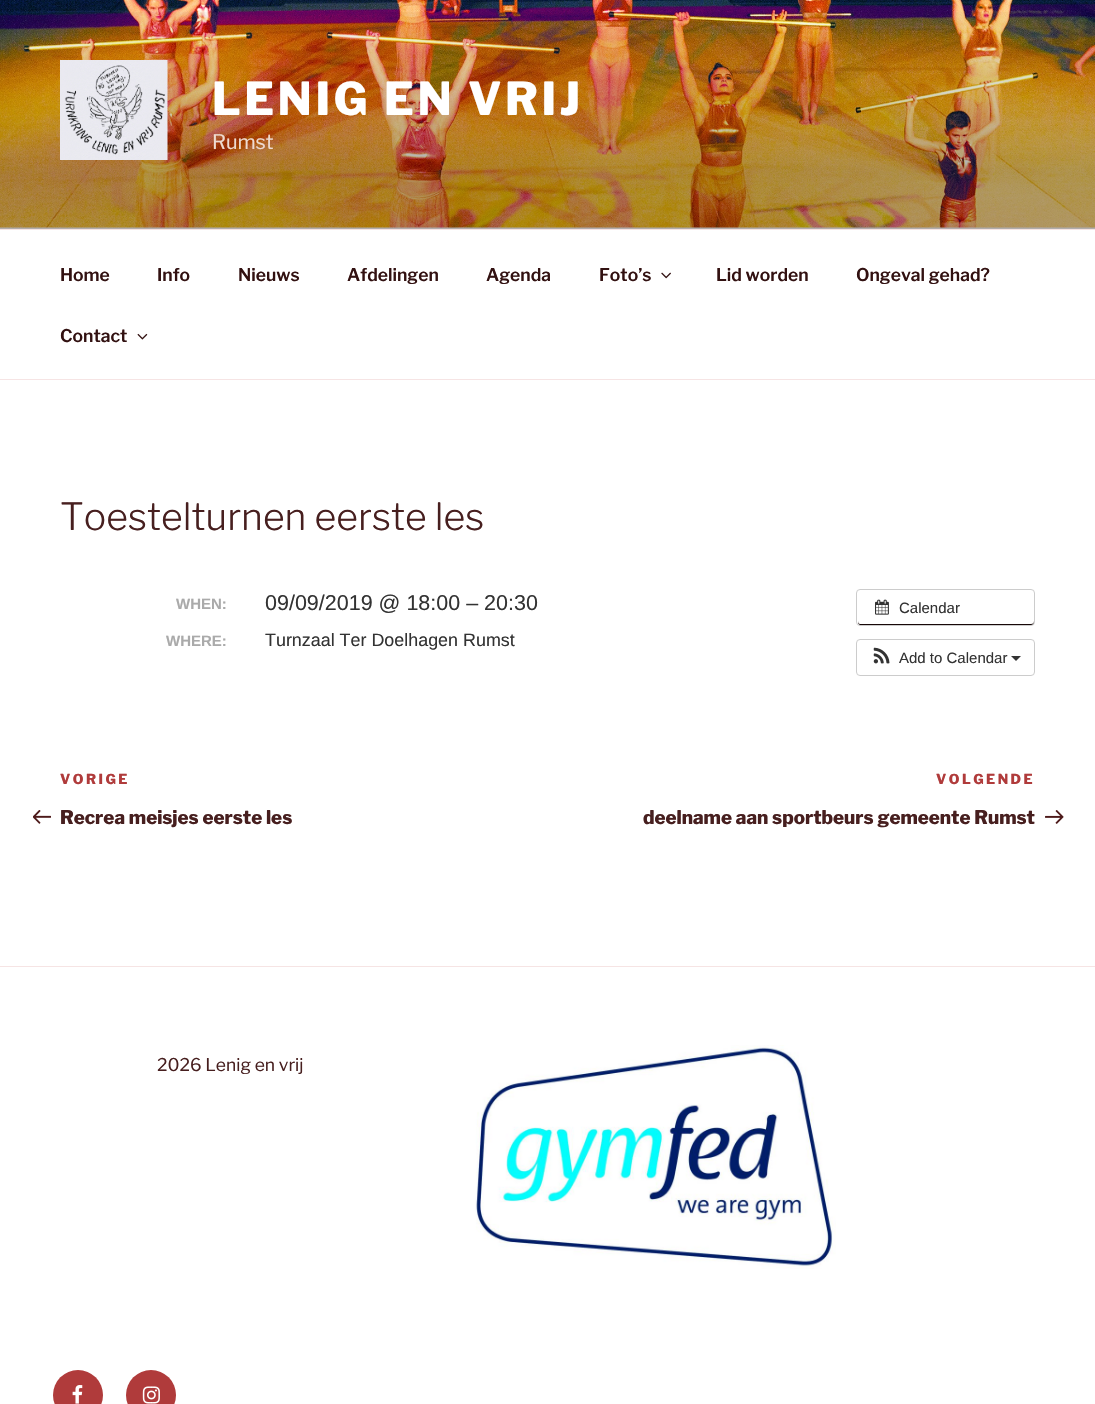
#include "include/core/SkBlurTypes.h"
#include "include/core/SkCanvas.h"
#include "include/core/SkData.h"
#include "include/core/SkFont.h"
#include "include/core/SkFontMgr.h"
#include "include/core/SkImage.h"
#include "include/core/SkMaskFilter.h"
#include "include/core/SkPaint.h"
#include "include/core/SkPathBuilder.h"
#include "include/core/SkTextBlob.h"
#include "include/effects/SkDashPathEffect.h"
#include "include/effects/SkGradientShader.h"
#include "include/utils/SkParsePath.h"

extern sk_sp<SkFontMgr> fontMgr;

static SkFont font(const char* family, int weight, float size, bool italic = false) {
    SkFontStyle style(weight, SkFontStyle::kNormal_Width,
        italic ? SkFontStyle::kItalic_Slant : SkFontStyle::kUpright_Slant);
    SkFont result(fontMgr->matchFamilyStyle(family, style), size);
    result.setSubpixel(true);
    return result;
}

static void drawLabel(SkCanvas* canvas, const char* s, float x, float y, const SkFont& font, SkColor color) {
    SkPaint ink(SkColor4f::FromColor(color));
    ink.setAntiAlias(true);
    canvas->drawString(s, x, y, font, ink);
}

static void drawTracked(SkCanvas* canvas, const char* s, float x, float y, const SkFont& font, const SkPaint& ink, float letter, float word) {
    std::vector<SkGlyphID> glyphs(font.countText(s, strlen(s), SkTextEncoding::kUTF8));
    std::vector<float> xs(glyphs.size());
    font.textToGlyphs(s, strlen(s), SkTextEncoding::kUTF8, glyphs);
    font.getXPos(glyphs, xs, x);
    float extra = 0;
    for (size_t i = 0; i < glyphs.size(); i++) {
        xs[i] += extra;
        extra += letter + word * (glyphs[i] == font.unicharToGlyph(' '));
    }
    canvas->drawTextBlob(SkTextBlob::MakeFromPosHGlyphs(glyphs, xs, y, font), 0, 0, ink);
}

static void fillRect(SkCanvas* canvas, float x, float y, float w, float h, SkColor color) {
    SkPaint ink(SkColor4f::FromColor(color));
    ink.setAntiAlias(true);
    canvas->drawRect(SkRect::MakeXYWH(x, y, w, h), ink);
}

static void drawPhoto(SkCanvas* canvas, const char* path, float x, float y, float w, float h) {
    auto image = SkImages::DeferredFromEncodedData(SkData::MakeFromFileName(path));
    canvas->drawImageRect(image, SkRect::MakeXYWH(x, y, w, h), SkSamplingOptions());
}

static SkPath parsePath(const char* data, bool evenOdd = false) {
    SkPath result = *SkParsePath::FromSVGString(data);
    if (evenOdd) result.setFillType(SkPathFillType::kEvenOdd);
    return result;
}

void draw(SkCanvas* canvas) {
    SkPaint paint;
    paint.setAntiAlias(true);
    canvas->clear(0xFFFFFFFF);
    fillRect(canvas, 0, 227, 1095, 2, 0xFFFCF7F7);
    drawPhoto(canvas, "assets/img1.png", 0, 0, 1095, 228);
    {
        const SkColor colors[] = {0x00000000, 0x4D000000, 0x4D000000};
        const float stops[] = {0, 0.75f, 1};
        const SkPoint ends[] = {{548, 0}, {548, 229}};
        paint.setShader(SkGradientShader::MakeLinear(ends, colors, stops, 3, SkTileMode::kClamp));
        paint.setAlpha(255);
    }
    canvas->drawRect(SkRect::MakeXYWH(0, 12, 1095, 217), paint);
    drawPhoto(canvas, "assets/img2.png", 60, 60, 108, 100);
    SkFont font1 = font("Libre Franklin", 100, 45);
    paint.setShader(nullptr);
    paint.setColor(0xFFFFFFFF);
    drawTracked(canvas, "LENIG EN VRIJ", 212, 115, font1, paint, 3.6f, 0);
    SkFont font2 = font("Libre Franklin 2", 100, 20);
    drawLabel(canvas, "Rumst", 212, 149, font2, 0xFFEEDBD1);
    fillRect(canvas, 0, 229, 1095, 1, 0xFFF6E4E4);
    fillRect(canvas, 0, 379, 1095, 1, 0xFFF6E4E4);
    SkFont font3 = font("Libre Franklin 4", 100, 17.5f);
    drawLabel(canvas, "Home", 60, 281, font3, 0xFF321111);
    drawLabel(canvas, "Info", 157, 281, font3, 0xFF321111);
    drawLabel(canvas, "Nieuws", 238, 281, font3, 0xFF321111);
    drawLabel(canvas, "Afdelingen", 347, 281, font3, 0xFF321111);
    drawLabel(canvas, "Agenda", 486, 281, font3, 0xFF321111);
    drawLabel(canvas, "Foto’s", 599, 281, font3, 0xFF321111);
    drawPhoto(canvas, "assets/img3.png", 661, 272, 10, 7);
    drawLabel(canvas, "Lid worden", 716, 281, font3, 0xFF321111);
    drawLabel(canvas, "Ongeval gehad?", 856, 281, font3, 0xFF321111);
    drawLabel(canvas, "Contact", 60, 342, font3, 0xFF321111);
    drawPhoto(canvas, "assets/img4.png", 137, 333, 11, 7);
    SkFont font4 = font("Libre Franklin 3", 100, 37.5f);
    drawLabel(canvas, "Toestelturnen eerste les", 60, 530, font4, 0xFF471F1F);
    SkFont font5 = font("Liberation Sans", 700, 15);
    drawLabel(canvas, "WHEN:", 176, 609, font5, 0xFFAAAAAA);
    SkFont font6 = font("Liberation Sans", 400, 21.5f);
    drawLabel(canvas, "09/09/2019 @ 18:00 – 20:30", 265, 610, font6, 0xFF333333);
    drawLabel(canvas, "WHERE:", 166, 646, font5, 0xFFAAAAAA);
    SkFont font7 = font("Liberation Sans", 400, 17.9f);
    drawLabel(canvas, "Turnzaal Ter Doelhagen Rumst", 265, 646, font7, 0xFF333333);
    paint.setColor(0xFF170808);
    canvas->drawPath(parsePath("M858 621V622C858 624 859 625 860 625H1032C1033 625 1034 624 1034 622V621C1034 623 1033 624 1031 624H860C859 624 858 623 858 621Z"), paint);
    paint.setStroke(true);
    paint.setStrokeWidth(1);
    paint.setColor(0xFFCCCCCC);
    canvas->drawRoundRect(SkRect::MakeXYWH(856.5f, 589.5f, 178, 36), 3.5f, 3.5f, paint);
    drawPhoto(canvas, "assets/img5.png", 875, 599, 14, 16);
    SkFont font8 = font("Liberation Sans", 400, 15);
    drawLabel(canvas, "Calendar", 899, 613, font8, 0xFF333333);
    canvas->drawRoundRect(SkRect::MakeXYWH(856.5f, 639.5f, 178, 36), 3.5f, 3.5f, paint);
    drawPhoto(canvas, "assets/img6.png", 873, 647, 17, 17);
    drawLabel(canvas, "Add to Calendar", 899, 663, font8, 0xFF333333);
    paint.setStroke(false);
    paint.setColor(0xFF333333);
    canvas->drawPath(parsePath("M1011 656H1021L1016 661Z"), paint);
    SkFont font9 = font("Libre Franklin", 100, 13.75f);
    paint.setColor(0xFFB03B3B);
    drawTracked(canvas, "VORIGE", 60, 784, font9, paint, 2.5f, 0);
    drawPhoto(canvas, "assets/img7.png", 33, 810, 18, 14);
    SkFont font10 = font("Libre Franklin", 100, 18.75f);
    drawLabel(canvas, "Recrea meisjes eerste les", 60, 824, font10, 0xFF471F1F);
    drawTracked(canvas, "VOLGENDE", 936, 784, font9, paint, 2.5f, 0);
    drawLabel(canvas, "deelname aan sportbeurs gemeente Rumst", 643, 824, font10, 0xFF471F1F);
    drawPhoto(canvas, "assets/img8.png", 1045, 810, 19, 14);
    fillRect(canvas, 0, 966, 1095, 1, 0xFFF6E4E4);
    SkFont font11 = font("Libre Franklin 2", 100, 17.5f);
    drawLabel(canvas, "2026 Lenig en vrij", 157, 1071, font11, 0xFF471F1F);
    drawPhoto(canvas, "assets/img9.png", 475, 1045, 361, 224);
    canvas->drawCircle(78, 1395, 25, paint);
    drawPhoto(canvas, "assets/img10.png", 72, 1385, 11, 19);
    canvas->drawCircle(151, 1395, 25, paint);
    drawPhoto(canvas, "assets/img11.png", 142, 1386, 18, 18);
}
